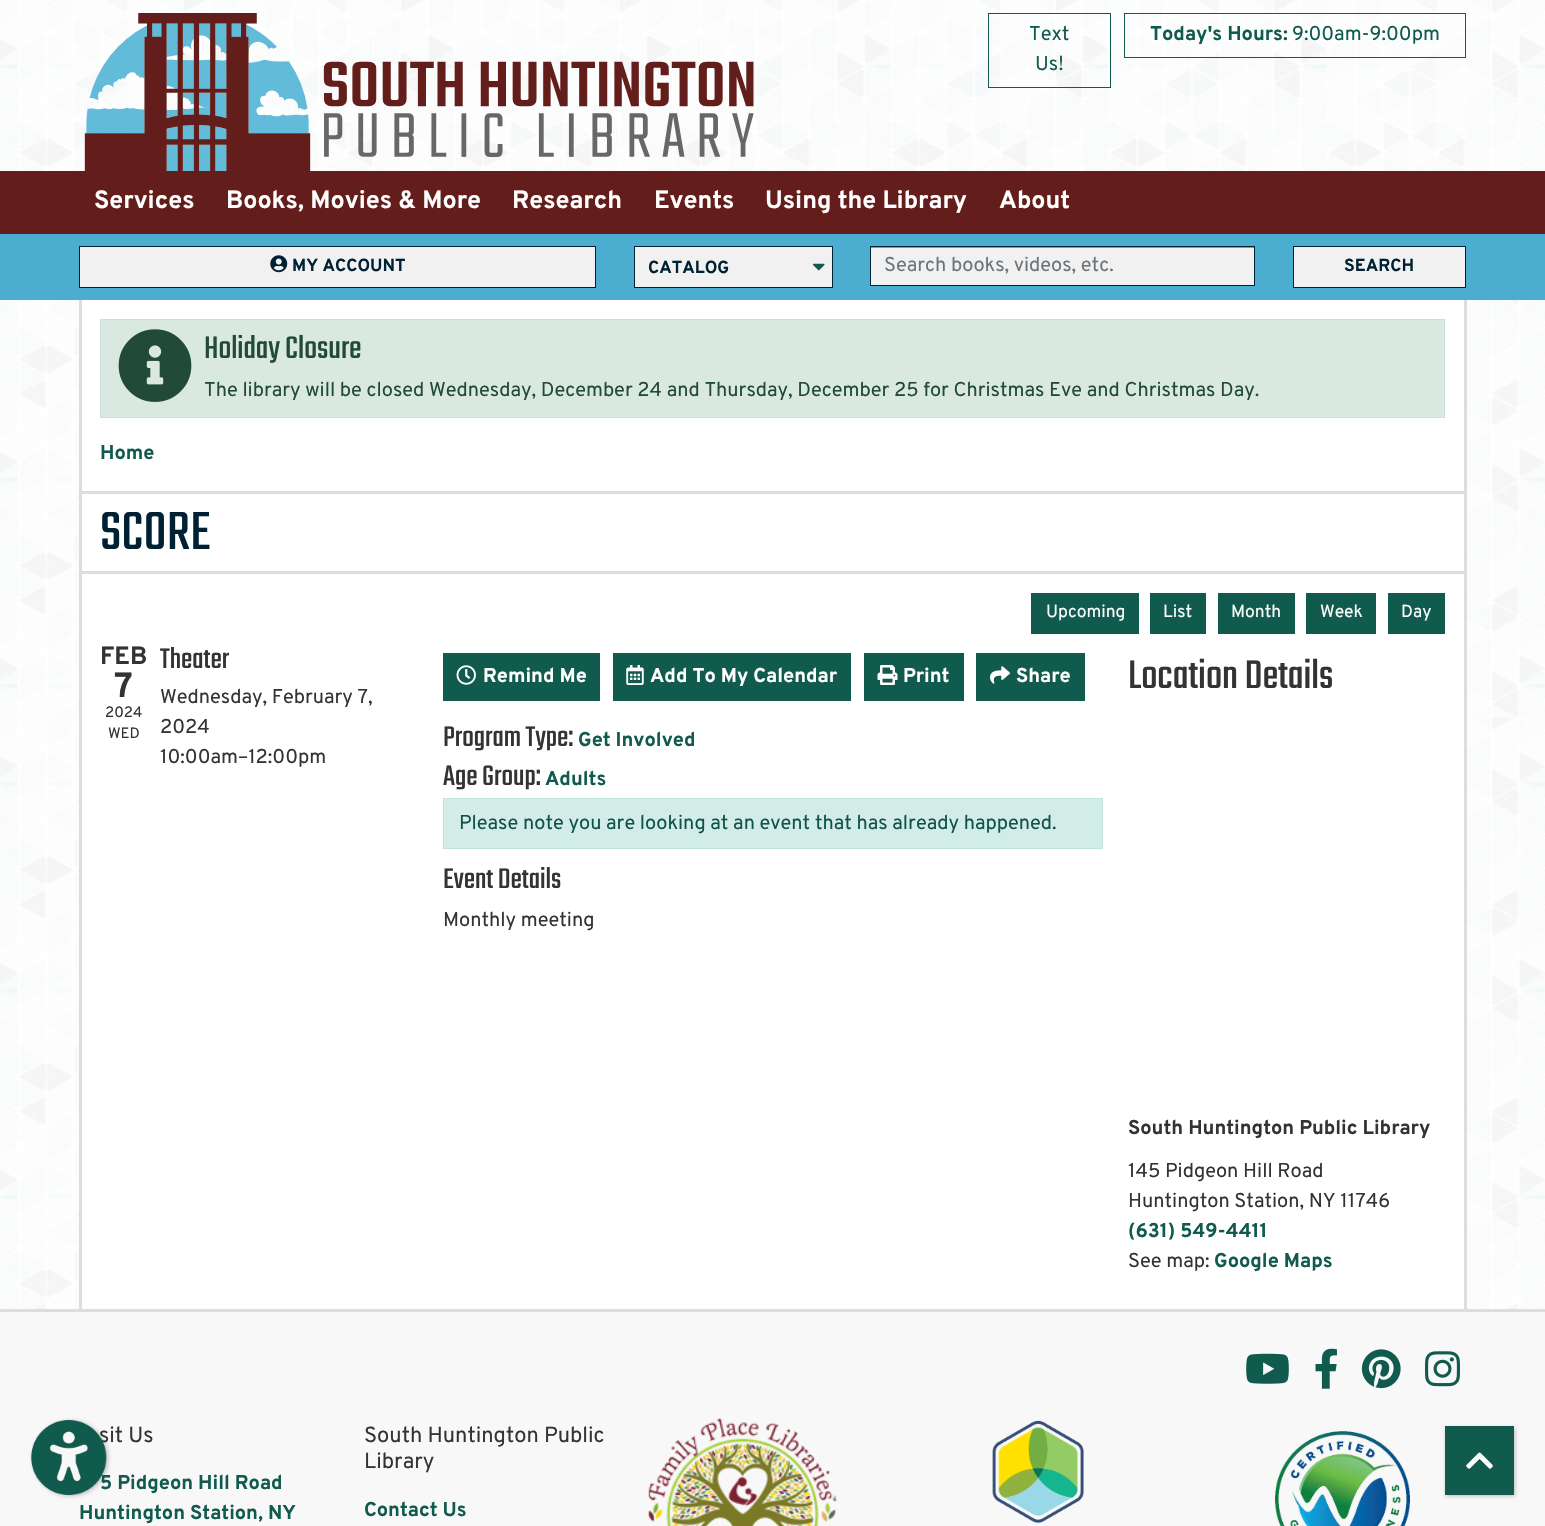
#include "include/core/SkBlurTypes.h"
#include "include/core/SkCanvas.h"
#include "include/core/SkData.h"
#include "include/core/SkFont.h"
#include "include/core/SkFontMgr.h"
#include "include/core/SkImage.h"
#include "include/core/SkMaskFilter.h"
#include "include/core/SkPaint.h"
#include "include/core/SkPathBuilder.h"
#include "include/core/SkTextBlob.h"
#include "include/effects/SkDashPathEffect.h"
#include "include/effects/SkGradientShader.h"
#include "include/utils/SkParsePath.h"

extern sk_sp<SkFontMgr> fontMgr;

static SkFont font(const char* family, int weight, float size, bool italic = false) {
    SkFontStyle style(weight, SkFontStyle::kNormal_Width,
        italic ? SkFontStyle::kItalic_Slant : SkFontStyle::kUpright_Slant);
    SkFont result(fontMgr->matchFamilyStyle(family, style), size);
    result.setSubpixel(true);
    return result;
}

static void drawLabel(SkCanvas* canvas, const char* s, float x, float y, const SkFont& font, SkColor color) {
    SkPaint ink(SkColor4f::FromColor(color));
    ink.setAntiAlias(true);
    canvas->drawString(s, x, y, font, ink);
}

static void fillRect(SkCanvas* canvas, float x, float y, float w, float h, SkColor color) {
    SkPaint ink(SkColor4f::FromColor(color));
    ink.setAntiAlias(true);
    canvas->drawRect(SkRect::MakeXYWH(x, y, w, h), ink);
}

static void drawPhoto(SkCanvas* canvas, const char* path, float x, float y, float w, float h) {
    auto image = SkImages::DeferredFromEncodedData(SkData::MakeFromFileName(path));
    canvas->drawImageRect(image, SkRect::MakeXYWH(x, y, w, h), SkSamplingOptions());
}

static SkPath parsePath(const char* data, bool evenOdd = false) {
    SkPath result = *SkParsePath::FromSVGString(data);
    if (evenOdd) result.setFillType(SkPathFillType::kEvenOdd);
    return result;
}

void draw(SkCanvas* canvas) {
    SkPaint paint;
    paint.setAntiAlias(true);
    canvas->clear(0xFFFFFFFF);
    drawPhoto(canvas, "assets/img1.png", 0, 0, 1545, 1309);
    fillRect(canvas, 0, 171, 1545, 63, 0xFF631D1A);
    drawPhoto(canvas, "assets/img2.png", 84, 13, 670, 159);
    paint.setStroke(true);
    paint.setStrokeWidth(1);
    paint.setColor(0xFF105A4E);
    canvas->drawRect(SkRect::MakeXYWH(988.5f, 13.5f, 122, 74), paint);
    SkFont font1 = font("Overpass", 400, 20);
    drawLabel(canvas, "Text", 1029, 40, font1, 0xFF105A4E);
    drawLabel(canvas, "Us!", 1035, 70, font1, 0xFF105A4E);
    canvas->drawRect(SkRect::MakeXYWH(1124.5f, 13.5f, 341, 44), paint);
    SkFont font2 = font("Overpass", 700, 20);
    drawLabel(canvas, "Today's Hours:", 1150, 40, font2, 0xFF105A4E);
    drawLabel(canvas, "9:00am-9:00pm", 1292, 40, font1, 0xFF105A4E);
    fillRect(canvas, 166, 171, 61, 1, 0xFF631D1A);
    SkFont font3 = font("Overpass", 700, 25);
    drawLabel(canvas, "Services", 94, 208, font3, 0xFFFFFFFF);
    drawLabel(canvas, "Books, Movies & More", 226, 208, font3, 0xFFFFFFFF);
    drawLabel(canvas, "Research", 512, 208, font3, 0xFFFFFFFF);
    drawLabel(canvas, "Events", 654, 208, font3, 0xFFFFFFFF);
    drawLabel(canvas, "Using the Library", 765, 208, font3, 0xFFFFFFFF);
    drawLabel(canvas, "About", 999, 208, font3, 0xFFFFFFFF);
    fillRect(canvas, 0, 234, 1545, 66, 0xFF4BAED0);
    paint.setStroke(false);
    paint.setColor(0xFFF1F1F1);
    canvas->drawRect(SkRect::MakeXYWH(79.5f, 246.5f, 516, 41), paint);
    paint.setStroke(true);
    paint.setColor(0xFF002134);
    canvas->drawRect(SkRect::MakeXYWH(79.5f, 246.5f, 516, 41), paint);
    drawPhoto(canvas, "assets/img3.png", 270, 255, 18, 18);
    SkFont font4 = font("Overpass", 700, 17.5f);
    drawLabel(canvas, "MY ACCOUNT", 292, 271, font4, 0xFF002134);
    fillRect(canvas, 635, 247, 197, 40, 0xFFF1F1F1);
    drawPhoto(canvas, "assets/img4.png", 813, 263, 12, 8);
    canvas->drawRect(SkRect::MakeXYWH(634.5f, 246.5f, 198, 41), paint);
    drawLabel(canvas, "CATALOG", 648, 273, font4, 0xFF002134);
    fillRect(canvas, 871, 248, 383, 37, 0xFFF1F1F1);
    canvas->drawRect(SkRect::MakeXYWH(870.5f, 246.5f, 384, 39), paint);
    drawLabel(canvas, "Search books, videos, etc.", 884, 271, font1, 0xFF6C757D);
    paint.setStroke(false);
    paint.setColor(0xFFF1F1F1);
    canvas->drawRect(SkRect::MakeXYWH(1293.5f, 246.5f, 172, 41), paint);
    paint.setStroke(true);
    paint.setColor(0xFF002134);
    canvas->drawRect(SkRect::MakeXYWH(1293.5f, 246.5f, 172, 41), paint);
    drawLabel(canvas, "SEARCH", 1344, 271, font4, 0xFF002134);
    fillRect(canvas, 82, 300, 1382, 1009, 0xFFFFFFFF);
    fillRect(canvas, 1464, 300, 3, 1009, 0xFFDDDDDD);
    fillRect(canvas, 79, 300, 3, 1009, 0xFFDDDDDD);
    paint.setStroke(false);
    paint.setColor(0xFFD9E9E2);
    canvas->drawRect(SkRect::MakeXYWH(100.5f, 319.5f, 1344, 98), paint);
    paint.setStroke(true);
    paint.setColor(0xFFCAE0D7);
    canvas->drawRect(SkRect::MakeXYWH(100.5f, 319.5f, 1344, 98), paint);
    drawPhoto(canvas, "assets/img5.png", 118, 329, 74, 73);
    SkFont font5 = font("Teko", 400, 34.5f);
    drawLabel(canvas, "Holiday Closure", 204, 358, font5, 0xFF224A3A);
    drawLabel(canvas, "The library will be closed Wednesday, December 24 and Thursday, December 25 for Christmas Eve and Christmas Day.", 204, 396, font1, 0xFF224A3A);
    drawLabel(canvas, "Home", 100, 459, font2, 0xFF105A4E);
    fillRect(canvas, 81, 491, 1383, 3, 0xFFDDDDDD);
    fillRect(canvas, 81, 571, 1383, 3, 0xFFDDDDDD);
    SkFont font6 = font("Teko", 400, 59);
    drawLabel(canvas, "SCORE", 100, 549, font6, 0xFF002134);
    fillRect(canvas, 1031, 593, 108, 41, 0xFF105A4E);
    SkFont font7 = font("Overpass", 400, 17.5f);
    drawLabel(canvas, "Upcoming", 1046, 617, font7, 0xFFFFFFFF);
    fillRect(canvas, 1150, 593, 56, 41, 0xFF105A4E);
    drawLabel(canvas, "List", 1163, 617, font7, 0xFFFFFFFF);
    fillRect(canvas, 1218, 593, 77, 41, 0xFF105A4E);
    drawLabel(canvas, "Month", 1231, 617, font7, 0xFFFFFFFF);
    fillRect(canvas, 1306, 593, 70, 41, 0xFF105A4E);
    drawLabel(canvas, "Week", 1320, 617, font7, 0xFFFFFFFF);
    fillRect(canvas, 1388, 593, 57, 41, 0xFF105A4E);
    drawLabel(canvas, "Day", 1401, 617, font7, 0xFFFFFFFF);
    drawLabel(canvas, "FEB", 100, 664, font3, 0xFF333333);
    SkFont font8 = font("Overpass", 700, 35);
    drawLabel(canvas, "7", 114, 697, font8, 0xFF333333);
    SkFont font9 = font("Overpass", 400, 15);
    drawLabel(canvas, "2024", 105, 717, font9, 0xFF333333);
    drawLabel(canvas, "WED", 108, 738, font9, 0xFF333333);
    SkFont font10 = font("Teko", 400, 31.25f);
    drawLabel(canvas, "Theater", 160, 668, font10, 0xFF333333);
    drawLabel(canvas, "Wednesday, February 7,", 160, 703, font1, 0xFF333333);
    drawLabel(canvas, "2024", 160, 733, font1, 0xFF333333);
    drawLabel(canvas, "10:00am–12:00pm", 160, 763, font1, 0xFF333333);
    fillRect(canvas, 443, 653, 157, 48, 0xFF105A4E);
    drawPhoto(canvas, "assets/img6.png", 456, 665, 20, 20);
    drawLabel(canvas, "Remind Me", 483, 682, font2, 0xFFFFFFFF);
    fillRect(canvas, 613, 653, 238, 48, 0xFF105A4E);
    drawPhoto(canvas, "assets/img7.png", 626, 665, 18, 20);
    drawLabel(canvas, "Add To My Calendar", 650, 682, font2, 0xFFFFFFFF);
    fillRect(canvas, 864, 653, 100, 48, 0xFF105A4E);
    drawPhoto(canvas, "assets/img8.png", 877, 665, 21, 20);
    drawLabel(canvas, "Print", 903, 682, font2, 0xFFFFFFFF);
    fillRect(canvas, 976, 653, 109, 48, 0xFF105A4E);
    drawPhoto(canvas, "assets/img9.png", 990, 666, 20, 18);
    drawLabel(canvas, "Share", 1016, 682, font2, 0xFFFFFFFF);
    drawLabel(canvas, "Program Type:", 443, 746, font10, 0xFF333333);
    drawLabel(canvas, "Get Involved", 578, 746, font2, 0xFF105A4E);
    drawLabel(canvas, "Age Group:", 443, 785, font10, 0xFF333333);
    drawLabel(canvas, "Adults", 545, 785, font2, 0xFF105A4E);
    paint.setStroke(false);
    paint.setColor(0xFFD2ECE8);
    canvas->drawRect(SkRect::MakeXYWH(443.5f, 798.5f, 659, 50), paint);
    paint.setStroke(true);
    paint.setColor(0xFFC1E4DF);
    canvas->drawRect(SkRect::MakeXYWH(443.5f, 798.5f, 659, 50), paint);
    drawLabel(canvas, "Please note you are looking at an event that has already happened.", 459, 829, font1, 0xFF115348);
    drawLabel(canvas, "Event Details", 443, 888, font10, 0xFF333333);
    drawLabel(canvas, "Monthly meeting", 443, 926, font1, 0xFF333333);
    SkFont font11 = font("Teko", 400, 43.75f);
    drawLabel(canvas, "Location Details", 1128, 688, font11, 0xFF333333);
    drawLabel(canvas, "South Huntington Public Library", 1128, 1134, font2, 0xFF333333);
    drawLabel(canvas, "145 Pidgeon Hill Road", 1128, 1177, font1, 0xFF333333);
    drawLabel(canvas, "Huntington Station, NY 11746", 1128, 1207, font1, 0xFF333333);
    drawLabel(canvas, "(631) 549-4411", 1128, 1237, font2, 0xFF105A4E);
    drawLabel(canvas, "See map:", 1128, 1267, font1, 0xFF333333);
    drawLabel(canvas, "Google Maps", 1214, 1267, font2, 0xFF105A4E);
    fillRect(canvas, 0, 1312, 1545, 214, 0xFFF8F8F8);
    canvas->save();
    canvas->clipPath(parsePath("M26 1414H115V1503H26ZM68.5 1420C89 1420 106 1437 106 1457.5C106 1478 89 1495 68.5 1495C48 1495 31 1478 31 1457.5C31 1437 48 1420 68.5 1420Z", true), true);
    paint.setStroke(false);
    paint.setColor(0x40000000);
    paint.setMaskFilter(SkMaskFilter::MakeBlur(kNormal_SkBlurStyle, 2));
    canvas->drawRoundRect(SkRect::MakeXYWH(33, 1421, 75, 75), 37.5f, 37.5f, paint);
    paint.setMaskFilter(nullptr);
    canvas->restore();
    SkFont font12 = font("Overpass", 400, 21.9f);
    drawLabel(canvas, "sit Us", 99, 1442, font12, 0xFF333333);
    drawLabel(canvas, "5 Pidgeon Hill Road", 100, 1489, font2, 0xFF105A4E);
    drawPhoto(canvas, "assets/img10.png", 31, 1420, 76, 75);
    fillRect(canvas, 0, 1309, 1545, 3, 0xFFDDDDDD);
    drawPhoto(canvas, "assets/img11.png", 1246, 1353, 43, 31);
    drawPhoto(canvas, "assets/img12.png", 1315, 1348, 22, 41);
    drawPhoto(canvas, "assets/img13.png", 1361, 1349, 40, 40);
    drawPhoto(canvas, "assets/img14.png", 1425, 1351, 35, 36);
    drawLabel(canvas, "Huntington Station, NY", 79, 1519, font2, 0xFF105A4E);
    drawLabel(canvas, "South Huntington Public", 364, 1442, font12, 0xFF333333);
    drawLabel(canvas, "Library", 364, 1468, font12, 0xFF333333);
    drawLabel(canvas, "Contact Us", 364, 1516, font2, 0xFF105A4E);
    drawPhoto(canvas, "assets/img15.png", 648, 1418, 189, 108);
    drawPhoto(canvas, "assets/img16.png", 992, 1420, 92, 103);
    drawPhoto(canvas, "assets/img17.png", 1275, 1431, 135, 95);
    paint.setMaskFilter(SkMaskFilter::MakeBlur(kNormal_SkBlurStyle, 2));
    canvas->drawRect(SkRect::MakeXYWH(1446, 1428, 69, 68), paint);
    paint.setMaskFilter(nullptr);
    fillRect(canvas, 1445, 1426, 69, 69, 0xFF105A4E);
    drawPhoto(canvas, "assets/img18.png", 1466, 1452, 27, 17);
}
